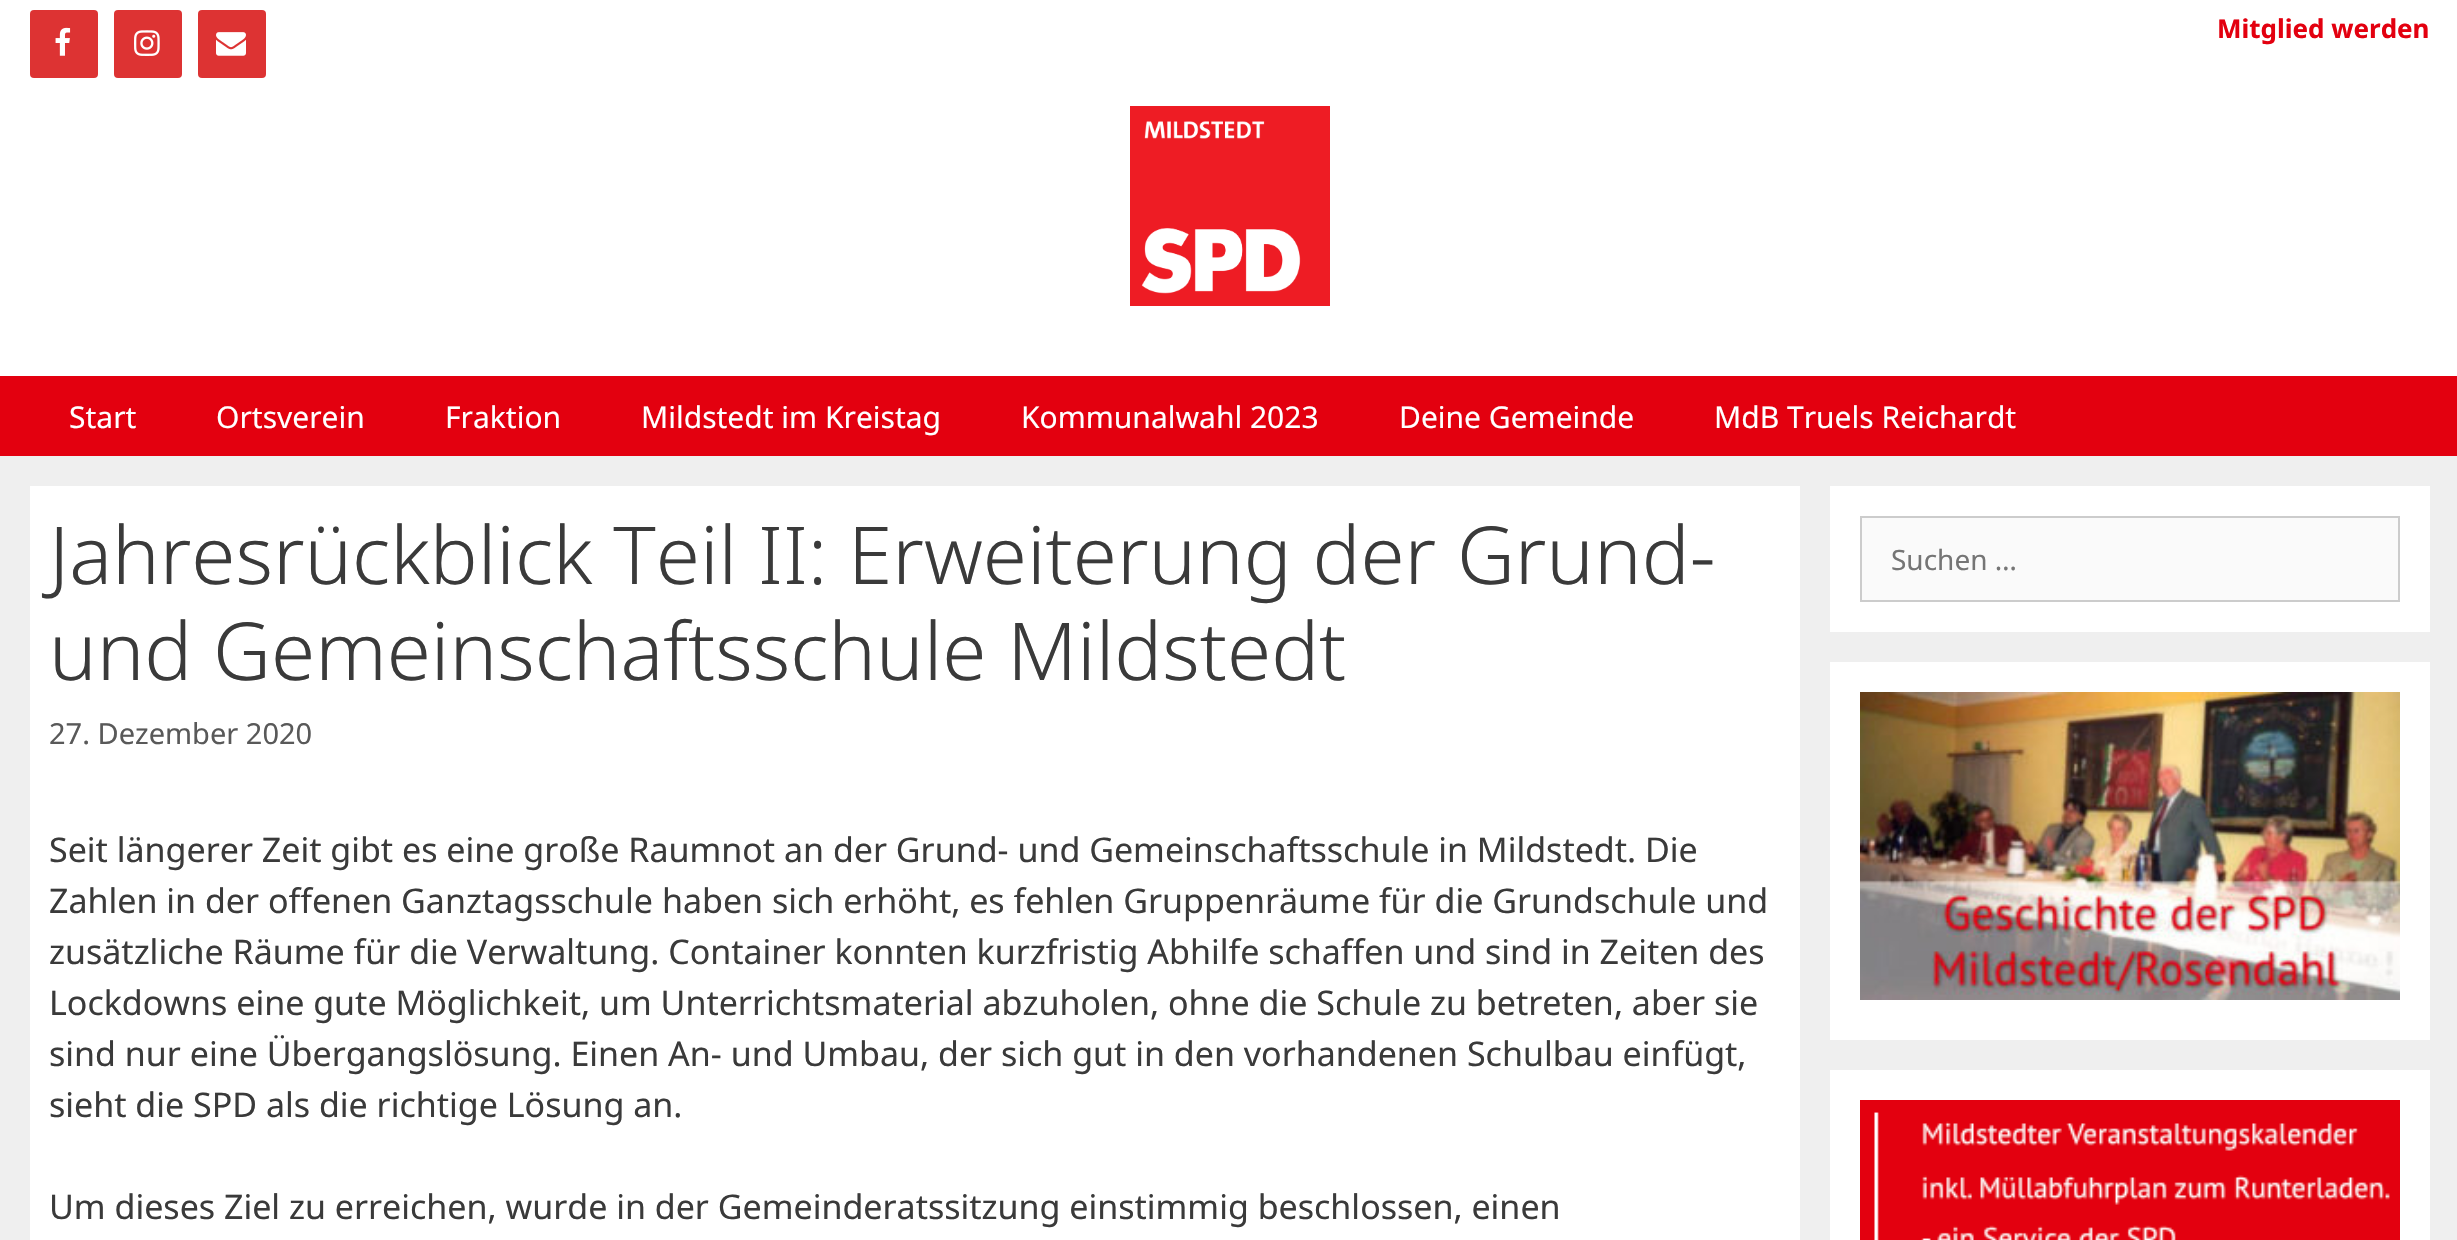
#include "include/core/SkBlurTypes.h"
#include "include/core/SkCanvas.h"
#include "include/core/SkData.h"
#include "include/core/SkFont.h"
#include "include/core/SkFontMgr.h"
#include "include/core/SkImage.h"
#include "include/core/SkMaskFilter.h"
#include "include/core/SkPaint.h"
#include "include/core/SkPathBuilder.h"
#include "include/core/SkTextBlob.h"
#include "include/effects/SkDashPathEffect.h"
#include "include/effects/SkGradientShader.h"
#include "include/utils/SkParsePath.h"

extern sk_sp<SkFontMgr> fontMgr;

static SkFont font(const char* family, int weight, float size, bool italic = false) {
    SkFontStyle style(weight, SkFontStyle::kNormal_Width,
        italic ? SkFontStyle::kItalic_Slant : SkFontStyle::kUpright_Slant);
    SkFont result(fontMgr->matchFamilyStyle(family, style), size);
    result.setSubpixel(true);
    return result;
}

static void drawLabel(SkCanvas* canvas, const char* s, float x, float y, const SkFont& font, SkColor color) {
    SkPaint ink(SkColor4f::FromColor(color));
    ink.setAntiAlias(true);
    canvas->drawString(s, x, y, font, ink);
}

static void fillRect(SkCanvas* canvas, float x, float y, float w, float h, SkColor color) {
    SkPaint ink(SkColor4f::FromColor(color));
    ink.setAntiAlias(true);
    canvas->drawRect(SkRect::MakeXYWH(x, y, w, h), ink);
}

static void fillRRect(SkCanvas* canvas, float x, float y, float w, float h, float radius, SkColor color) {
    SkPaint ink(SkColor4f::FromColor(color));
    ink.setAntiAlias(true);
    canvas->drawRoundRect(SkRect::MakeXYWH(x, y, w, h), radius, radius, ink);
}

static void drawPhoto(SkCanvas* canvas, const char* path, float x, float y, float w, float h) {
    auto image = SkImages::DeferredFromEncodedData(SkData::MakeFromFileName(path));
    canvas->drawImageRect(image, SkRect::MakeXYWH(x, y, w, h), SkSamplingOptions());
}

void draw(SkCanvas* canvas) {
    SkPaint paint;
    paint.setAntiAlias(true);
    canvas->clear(0xFFEFEFEF);
    fillRect(canvas, 0, 0, 2457, 376, 0xFFFFFFFF);
    fillRRect(canvas, 30, 10, 68, 68, 4, 0xFFDD3333);
    drawPhoto(canvas, "assets/img1.png", 55, 27, 16, 29);
    fillRRect(canvas, 114, 10, 68, 68, 4, 0xFFDD3333);
    drawPhoto(canvas, "assets/img2.png", 134, 30, 26, 26);
    fillRRect(canvas, 198, 10, 68, 68, 4, 0xFFDD3333);
    drawPhoto(canvas, "assets/img3.png", 216, 32, 30, 24);
    SkFont font1 = font("Noto Sans", 700, 26);
    drawLabel(canvas, "Mitglied werden", 2217, 38, font1, 0xFFE3000F);
    drawPhoto(canvas, "assets/img4.png", 1130, 106, 200, 200);
    fillRect(canvas, 0, 376, 2457, 80, 0xFFE3000F);
    SkFont font2 = font("Noto Sans", 400, 30);
    drawLabel(canvas, "Start", 69, 428, font2, 0xFFFFFFFF);
    drawLabel(canvas, "Ortsverein", 216, 428, font2, 0xFFFFFFFF);
    drawLabel(canvas, "Fraktion", 445, 428, font2, 0xFFFFFFFF);
    drawLabel(canvas, "Mildstedt im Kreistag", 641, 428, font2, 0xFFFFFFFF);
    drawLabel(canvas, "Kommunalwahl 2023", 1021, 428, font2, 0xFFFFFFFF);
    drawLabel(canvas, "Deine Gemeinde", 1399, 428, font2, 0xFFFFFFFF);
    drawLabel(canvas, "MdB Truels Reichardt", 1714, 428, font2, 0xFFFFFFFF);
    fillRect(canvas, 30, 486, 1770, 754, 0xFFFFFFFF);
    SkFont font3 = font("Noto Sans", 300, 80);
    drawLabel(canvas, "Jahresrückblick Teil II: Erweiterung der Grund-", 49, 584, font3, 0xFF3A3A3A);
    drawLabel(canvas, "und Gemeinschaftsschule Mildstedt", 49, 680, font3, 0xFF3A3A3A);
    SkFont font4 = font("Noto Sans", 400, 29);
    drawLabel(canvas, "27. Dezember 2020", 49, 744, font4, 0xFF595959);
    SkFont font5 = font("Noto Sans", 400, 34);
    drawLabel(canvas, "Seit längerer Zeit gibt es eine große Raumnot an der Grund- und Gemeinschaftsschule in Mildstedt. Die", 49, 862, font5, 0xFF3A3A3A);
    drawLabel(canvas, "Zahlen in der offenen Ganztagsschule haben sich erhöht, es fehlen Gruppenräume für die Grundschule und", 49, 913, font5, 0xFF3A3A3A);
    drawLabel(canvas, "zusätzliche Räume für die Verwaltung. Container konnten kurzfristig Abhilfe schaffen und sind in Zeiten des", 49, 964, font5, 0xFF3A3A3A);
    drawLabel(canvas, "Lockdowns eine gute Möglichkeit, um Unterrichtsmaterial abzuholen, ohne die Schule zu betreten, aber sie", 49, 1015, font5, 0xFF3A3A3A);
    drawLabel(canvas, "sind nur eine Übergangslösung. Einen An- und Umbau, der sich gut in den vorhandenen Schulbau einfügt,", 49, 1066, font5, 0xFF3A3A3A);
    drawLabel(canvas, "sieht die SPD als die richtige Lösung an.", 49, 1117, font5, 0xFF3A3A3A);
    drawLabel(canvas, "Um dieses Ziel zu erreichen, wurde in der Gemeinderatssitzung einstimmig beschlossen, einen", 49, 1219, font5, 0xFF3A3A3A);
    fillRect(canvas, 1830, 486, 600, 146, 0xFFFFFFFF);
    paint.setColor(0xFFFAFAFA);
    canvas->drawRect(SkRect::MakeXYWH(1861, 517, 538, 84), paint);
    paint.setStroke(true);
    paint.setStrokeWidth(2);
    paint.setColor(0xFFCCCCCC);
    canvas->drawRect(SkRect::MakeXYWH(1861, 517, 538, 84), paint);
    SkFont font6 = font("Noto Sans", 400, 28);
    drawLabel(canvas, "Suchen …", 1891, 570, font6, 0xFF757575);
    fillRect(canvas, 1830, 662, 600, 378, 0xFFFFFFFF);
    drawPhoto(canvas, "assets/img5.png", 1860, 692, 540, 308);
    fillRect(canvas, 1830, 1070, 600, 170, 0xFFFFFFFF);
    drawPhoto(canvas, "assets/img6.png", 1860, 1100, 540, 140);
}
